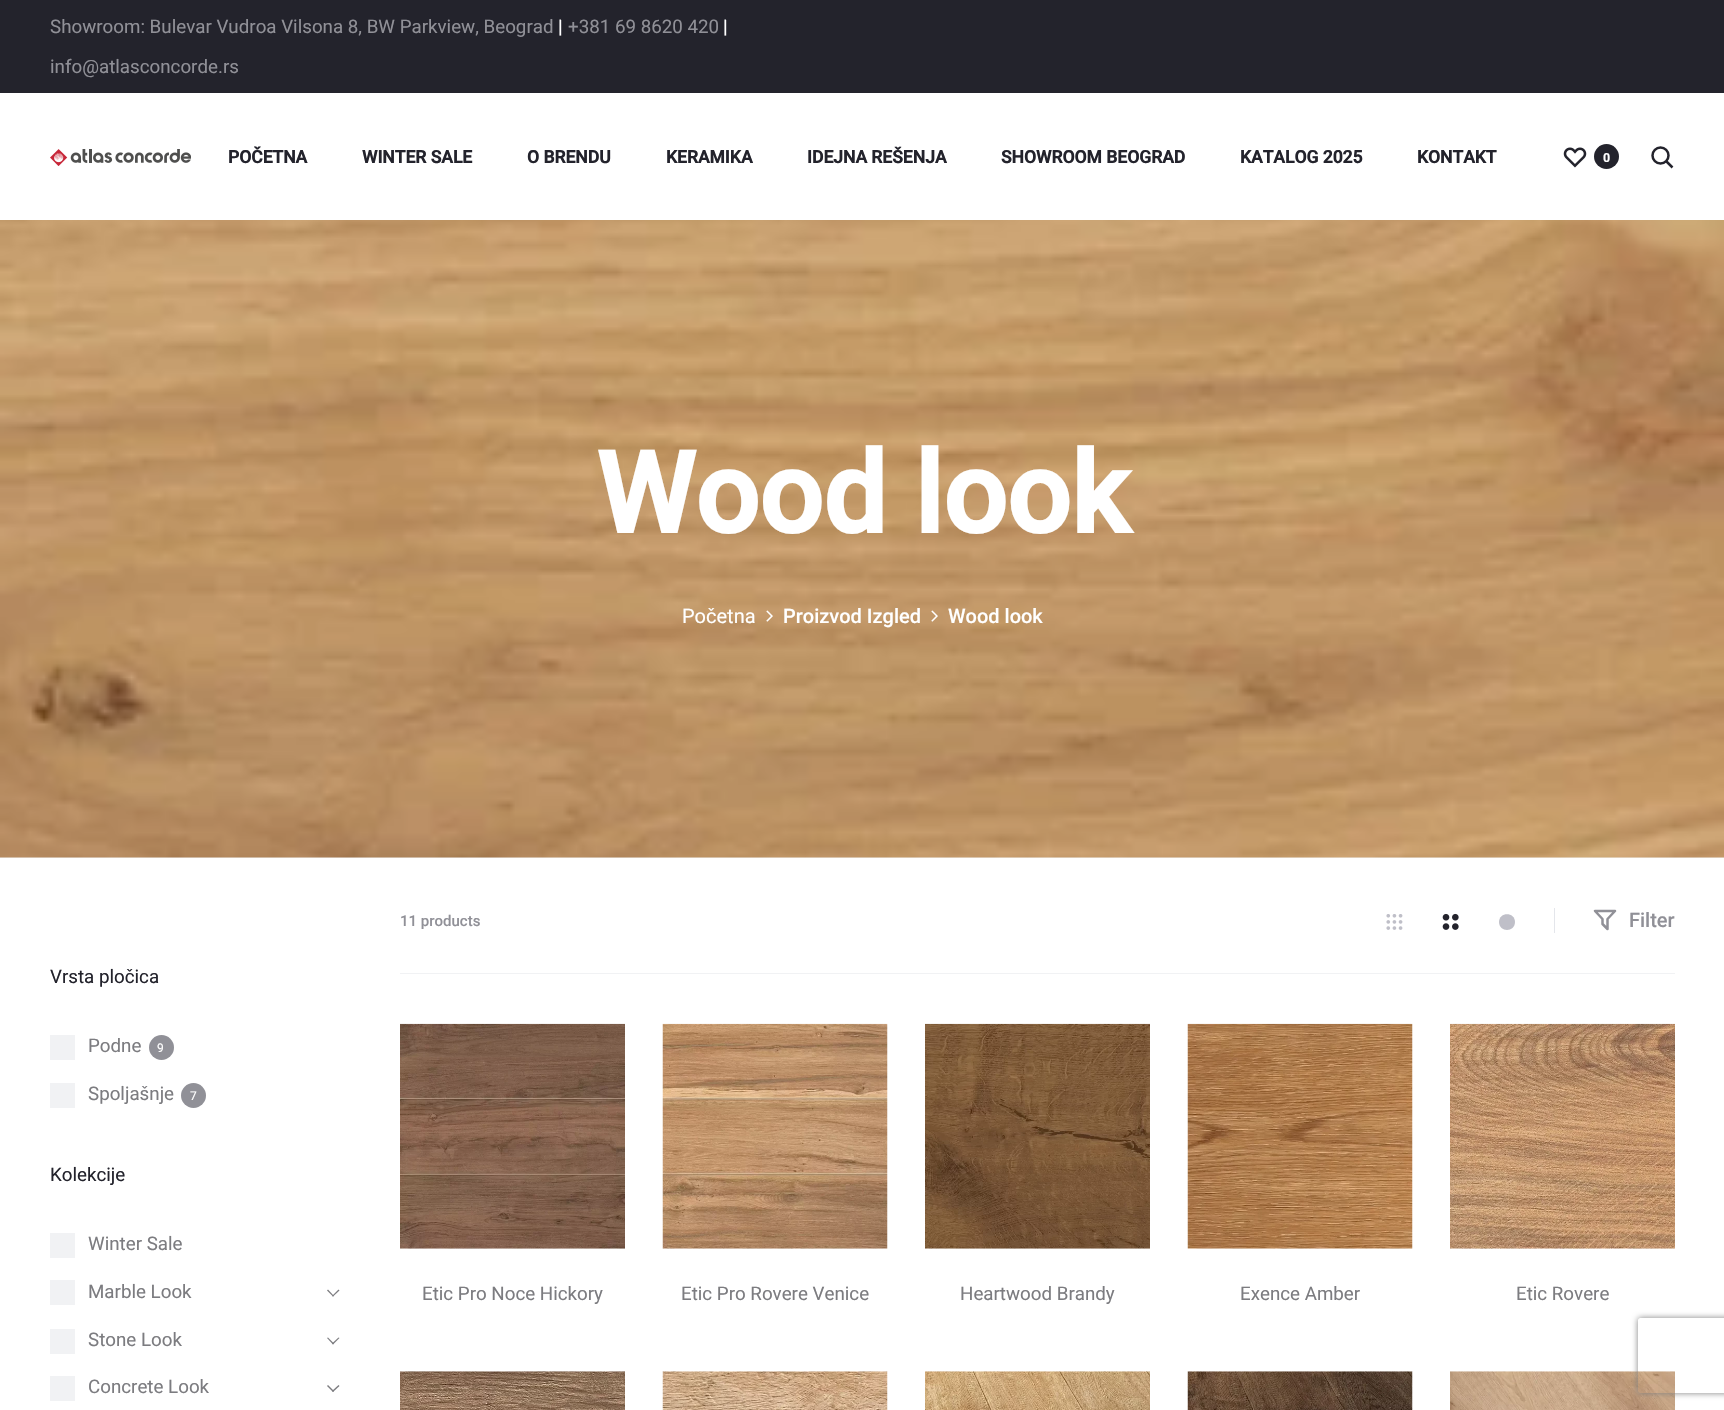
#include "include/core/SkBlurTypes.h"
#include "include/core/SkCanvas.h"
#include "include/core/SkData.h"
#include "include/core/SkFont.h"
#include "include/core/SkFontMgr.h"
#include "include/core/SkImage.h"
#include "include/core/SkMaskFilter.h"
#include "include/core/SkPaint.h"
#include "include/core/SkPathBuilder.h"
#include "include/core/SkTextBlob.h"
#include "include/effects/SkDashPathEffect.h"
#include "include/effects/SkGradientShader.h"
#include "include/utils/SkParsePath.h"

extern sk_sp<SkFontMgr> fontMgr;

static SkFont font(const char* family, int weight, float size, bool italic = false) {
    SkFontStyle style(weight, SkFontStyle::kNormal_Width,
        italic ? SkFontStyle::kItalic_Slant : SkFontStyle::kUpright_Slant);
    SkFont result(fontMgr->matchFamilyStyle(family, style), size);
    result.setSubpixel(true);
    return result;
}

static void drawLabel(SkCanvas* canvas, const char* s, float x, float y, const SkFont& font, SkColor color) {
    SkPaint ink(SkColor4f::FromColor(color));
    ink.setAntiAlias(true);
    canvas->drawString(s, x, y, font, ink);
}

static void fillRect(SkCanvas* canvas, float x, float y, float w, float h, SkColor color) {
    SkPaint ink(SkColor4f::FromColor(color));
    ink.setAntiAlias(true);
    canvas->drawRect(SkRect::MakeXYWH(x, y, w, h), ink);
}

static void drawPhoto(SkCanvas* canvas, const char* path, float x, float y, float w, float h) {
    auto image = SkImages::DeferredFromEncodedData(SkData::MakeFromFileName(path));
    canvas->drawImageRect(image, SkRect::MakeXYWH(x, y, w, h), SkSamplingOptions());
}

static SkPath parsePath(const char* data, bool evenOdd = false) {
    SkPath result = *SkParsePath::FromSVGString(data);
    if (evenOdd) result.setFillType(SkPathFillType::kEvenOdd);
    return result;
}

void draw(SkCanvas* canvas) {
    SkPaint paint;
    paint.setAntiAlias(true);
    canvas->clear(0xFFFFFFFF);
    fillRect(canvas, 0, 0, 1724, 93, 0xFF23232C);
    SkFont font1 = font("Roboto", 400, 18.75f);
    drawLabel(canvas, "Showroom: Bulevar Vudroa Vilsona 8, BW Parkview, Beograd", 50, 33, font1, 0xFF909097);
    SkFont font2 = font("Roboto", 500, 18.75f);
    drawLabel(canvas, "|", 558, 33, font2, 0xFFFFFFFF);
    drawLabel(canvas, "+381 69 8620 420", 568, 33, font1, 0xFF909097);
    drawLabel(canvas, "|", 723, 33, font2, 0xFFFFFFFF);
    drawLabel(canvas, "info@atlasconcorde.rs", 50, 73, font1, 0xFF909097);
    drawPhoto(canvas, "assets/img1.png", 50, 149, 141, 17);
    SkFont font3 = font("Roboto", 700, 17.5f);
    drawLabel(canvas, "POČETNA", 228, 163, font3, 0xFF23232C);
    drawLabel(canvas, "WINTER SALE", 362, 163, font3, 0xFF23232C);
    drawLabel(canvas, "O BRENDU", 527, 163, font3, 0xFF23232C);
    drawLabel(canvas, "KERAMIKA", 666, 163, font3, 0xFF23232C);
    drawLabel(canvas, "IDEJNA REŠENJA", 807, 163, font3, 0xFF23232C);
    drawLabel(canvas, "SHOWROOM BEOGRAD", 1001, 163, font3, 0xFF23232C);
    drawLabel(canvas, "KATALOG 2025", 1240, 163, font3, 0xFF23232C);
    drawLabel(canvas, "KONTAKT", 1417, 163, font3, 0xFF23232C);
    drawPhoto(canvas, "assets/img2.png", 1563, 147, 24, 21);
    paint.setColor(0xFF23232C);
    canvas->drawCircle(1606.5f, 156.5f, 12.5f, paint);
    SkFont font4 = font("Roboto", 700, 12);
    drawLabel(canvas, "0", 1603, 162, font4, 0xFFFFFFFF);
    paint.setStroke(true);
    paint.setStrokeWidth(2.5f);
    canvas->drawCircle(1660.5f, 155.5f, 8, paint);
    canvas->drawPath(parsePath("M1666 161L1672.5 167.5"), paint);
    fillRect(canvas, 0, 857, 1724, 1, 0xFFF1F2F4);
    drawPhoto(canvas, "assets/img3.png", 0, 220, 1724, 638);
    SkFont font5 = font("Roboto", 700, 112.5f);
    drawLabel(canvas, "Wood look", 596, 533, font5, 0xFFFFFFFF);
    SkFont font6 = font("Roboto", 400, 20);
    drawLabel(canvas, "Početna", 682, 623, font6, 0xFFFFFFFF);
    drawPhoto(canvas, "assets/img4.png", 766, 610, 7, 12);
    SkFont font7 = font("Roboto", 500, 20);
    drawLabel(canvas, "Proizvod Izgled", 783, 623, font7, 0xFFFFFFFF);
    drawPhoto(canvas, "assets/img5.png", 931, 610, 7, 12);
    drawLabel(canvas, "Wood look", 948, 623, font7, 0xFFFFFFFF);
    drawLabel(canvas, "Vrsta pločica", 50, 983, font1, 0xFF23232C);
    fillRect(canvas, 50, 1035, 25, 25, 0xFFF1F2F4);
    drawLabel(canvas, "Podne", 88, 1052, font1, 0xFF7C7C80);
    paint.setStroke(false);
    paint.setColor(0xFF909097);
    canvas->drawCircle(161.5f, 1047.5f, 12.5f, paint);
    SkFont font8 = font("Roboto", 400, 12);
    drawLabel(canvas, "9", 157, 1052, font8, 0xFFFFFFFF);
    fillRect(canvas, 50, 1083, 25, 25, 0xFFF1F2F4);
    drawLabel(canvas, "Spoljašnje", 88, 1100, font1, 0xFF7C7C80);
    canvas->drawCircle(193.5f, 1095.5f, 12.5f, paint);
    drawLabel(canvas, "7", 190, 1100, font8, 0xFFFFFFFF);
    drawLabel(canvas, "Kolekcije", 50, 1181, font1, 0xFF23232C);
    fillRect(canvas, 50, 1233, 25, 25, 0xFFF1F2F4);
    drawLabel(canvas, "Winter Sale", 88, 1250, font1, 0xFF7C7C80);
    fillRect(canvas, 50, 1280, 25, 25, 0xFFF1F2F4);
    drawLabel(canvas, "Marble Look", 88, 1298, font1, 0xFF7C7C80);
    paint.setColor(0xFF7C7C80);
    canvas->drawPath(parsePath("M338.5 1289.5L339.5 1290.5L333 1296.5L332 1296Z"), paint);
    canvas->drawPath(parsePath("M328 1289.5L334 1296L333 1296.5L327 1290.5Z"), paint);
    fillRect(canvas, 50, 1329, 25, 25, 0xFFF1F2F4);
    drawLabel(canvas, "Stone Look", 88, 1346, font1, 0xFF7C7C80);
    canvas->drawPath(parsePath("M338.5 1337.5L339.5 1338L333 1344.5L332 1343.5Z"), paint);
    canvas->drawPath(parsePath("M328 1337.5L334 1343.5L333 1344.5L327 1338Z"), paint);
    fillRect(canvas, 50, 1376, 25, 25, 0xFFF1F2F4);
    drawLabel(canvas, "Concrete Look", 88, 1393, font1, 0xFF7C7C80);
    canvas->drawPath(parsePath("M338.5 1385L339.5 1386L333 1392L332 1391Z"), paint);
    canvas->drawPath(parsePath("M328 1385L334 1391L333 1392L327 1386Z"), paint);
    fillRect(canvas, 400, 973, 1275, 1, 0xFFF1F2F4);
    SkFont font9 = font("Roboto", 500, 15);
    drawLabel(canvas, "11 products", 400, 926, font9, 0xFF909097);
    fillRect(canvas, 1554, 908, 1, 25, 0xFFE4E6EB);
    drawPhoto(canvas, "assets/img6.png", 1386, 914, 17, 16);
    drawPhoto(canvas, "assets/img7.png", 1442, 913, 17, 17);
    paint.setColor(0xFFBFBFC8);
    canvas->drawPath(parsePath("M1515 922C1515 932.5 1499 932.5 1499 922C1499 911.5 1515 911.5 1515 922Z"), paint);
    paint.setStroke(true);
    paint.setStrokeJoin(SkPaint::kRound_Join);
    paint.setColor(0xFF909097);
    canvas->drawPath(parsePath("M1607.5 919V929L1602.5 924V919L1595 911H1615Z"), paint);
    drawLabel(canvas, "Filter", 1629, 927, font7, 0xFF909097);
    drawPhoto(canvas, "assets/img8.png", 400, 1023, 225, 226);
    drawLabel(canvas, "Etic Pro Noce Hickory", 422, 1300, font1, 0xFF7C7C80);
    drawPhoto(canvas, "assets/img9.png", 662, 1023, 226, 226);
    drawLabel(canvas, "Etic Pro Rovere Venice", 681, 1300, font1, 0xFF7C7C80);
    drawPhoto(canvas, "assets/img10.png", 925, 1023, 225, 226);
    drawLabel(canvas, "Heartwood Brandy", 960, 1300, font1, 0xFF7C7C80);
    drawPhoto(canvas, "assets/img11.png", 1187, 1023, 226, 226);
    drawLabel(canvas, "Exence Amber", 1240, 1300, font1, 0xFF7C7C80);
    drawPhoto(canvas, "assets/img12.png", 1450, 1023, 225, 226);
    drawLabel(canvas, "Etic Rovere", 1516, 1300, font1, 0xFF7C7C80);
    drawPhoto(canvas, "assets/img13.png", 400, 1371, 225, 39);
    drawPhoto(canvas, "assets/img14.png", 662, 1371, 226, 39);
    drawPhoto(canvas, "assets/img15.png", 925, 1371, 225, 39);
    drawPhoto(canvas, "assets/img16.png", 1187, 1371, 226, 39);
    drawPhoto(canvas, "assets/img17.png", 1450, 1371, 225, 39);
    canvas->save();
    canvas->clipPath(parsePath("M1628 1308H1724V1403H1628ZM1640.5 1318H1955.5C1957 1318 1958 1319 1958 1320.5V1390.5C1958 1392 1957 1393 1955.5 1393H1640.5C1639 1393 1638 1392 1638 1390.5V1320.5C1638 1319 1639 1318 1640.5 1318Z", true), true);
    paint.setStroke(false);
    paint.setColor(0xFF808080);
    paint.setMaskFilter(SkMaskFilter::MakeBlur(kNormal_SkBlurStyle, 3));
    canvas->drawRoundRect(SkRect::MakeXYWH(1638, 1318, 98, 75), 2.5f, 2.5f, paint);
    paint.setMaskFilter(nullptr);
    canvas->restore();
}
